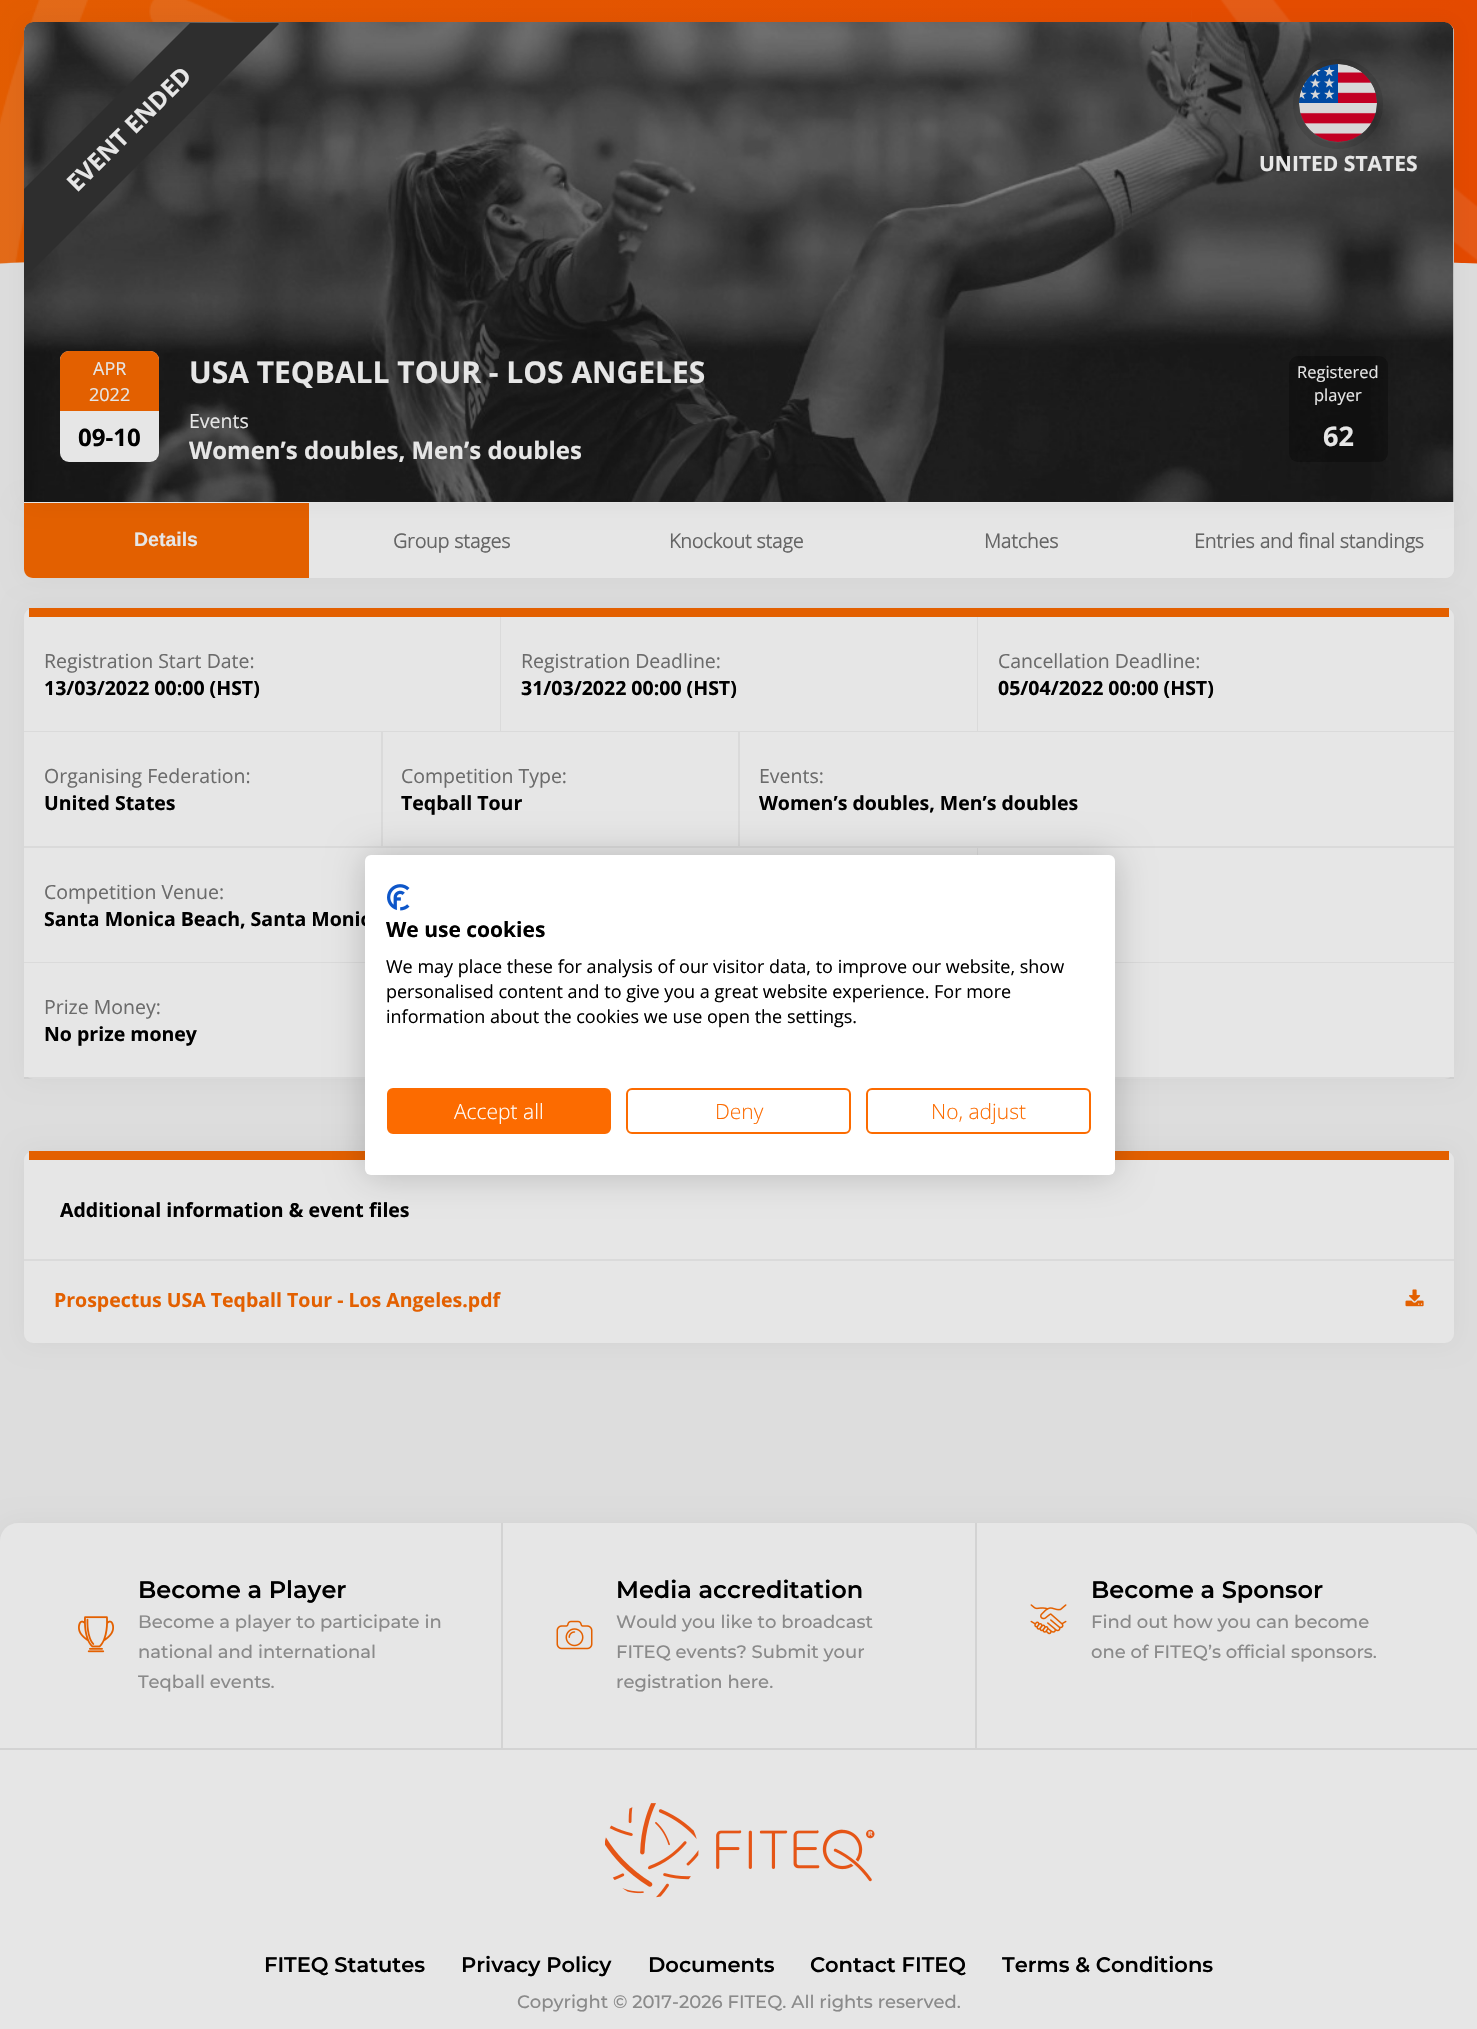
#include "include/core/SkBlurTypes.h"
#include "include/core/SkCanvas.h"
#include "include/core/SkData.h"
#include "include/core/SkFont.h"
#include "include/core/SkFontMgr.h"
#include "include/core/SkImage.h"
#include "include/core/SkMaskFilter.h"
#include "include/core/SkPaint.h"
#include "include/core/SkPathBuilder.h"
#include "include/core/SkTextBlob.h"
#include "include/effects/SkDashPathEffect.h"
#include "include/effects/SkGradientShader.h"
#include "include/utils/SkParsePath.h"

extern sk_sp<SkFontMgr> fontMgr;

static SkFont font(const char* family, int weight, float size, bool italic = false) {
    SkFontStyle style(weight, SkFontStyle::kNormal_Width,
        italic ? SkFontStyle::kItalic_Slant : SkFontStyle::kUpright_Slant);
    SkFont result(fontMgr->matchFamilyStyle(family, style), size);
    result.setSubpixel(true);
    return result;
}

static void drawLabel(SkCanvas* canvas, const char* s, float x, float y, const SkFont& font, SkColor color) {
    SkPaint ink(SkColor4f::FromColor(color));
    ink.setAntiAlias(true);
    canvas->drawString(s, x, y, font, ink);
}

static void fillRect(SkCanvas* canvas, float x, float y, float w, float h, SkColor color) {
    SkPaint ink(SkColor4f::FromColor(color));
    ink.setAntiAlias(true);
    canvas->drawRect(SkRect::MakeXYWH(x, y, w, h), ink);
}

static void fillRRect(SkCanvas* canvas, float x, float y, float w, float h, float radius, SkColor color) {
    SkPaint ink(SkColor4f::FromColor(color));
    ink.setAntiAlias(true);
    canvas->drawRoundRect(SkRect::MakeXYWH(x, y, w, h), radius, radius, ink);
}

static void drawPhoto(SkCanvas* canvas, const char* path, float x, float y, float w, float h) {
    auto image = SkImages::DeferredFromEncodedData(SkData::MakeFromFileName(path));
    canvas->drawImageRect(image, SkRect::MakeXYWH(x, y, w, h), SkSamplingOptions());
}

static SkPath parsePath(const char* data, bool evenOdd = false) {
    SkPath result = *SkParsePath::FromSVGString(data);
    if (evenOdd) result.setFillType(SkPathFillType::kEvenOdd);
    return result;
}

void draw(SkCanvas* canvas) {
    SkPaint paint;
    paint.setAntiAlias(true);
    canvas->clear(0xFFDDDDDD);
    drawPhoto(canvas, "assets/img1.png", 0, 0, 1477, 264);
    paint.setColor(0x0D000000);
    paint.setMaskFilter(SkMaskFilter::MakeBlur(kNormal_SkBlurStyle, 11));
    canvas->drawRoundRect(SkRect::MakeXYWH(24, 503, 1430, 75), 9, 9, paint);
    paint.setMaskFilter(nullptr);
    paint.setColor(0xFFE6E6E6);
    canvas->drawPath(parsePath("M24 503H1454V569C1454 574 1450 578 1445 578H33C28 578 24 574 24 569Z"), paint);
    paint.setColor(0xFFE36000);
    canvas->drawPath(parsePath("M24 503H309V578H33C28 578 24 574 24 569Z"), paint);
    paint.setColor(0xFFE6E6E6);
    canvas->drawPath(parsePath("M1164 503H1454V569C1454 574 1450 578 1445 578H1164Z"), paint);
    paint.setColor(0x0D000000);
    paint.setMaskFilter(SkMaskFilter::MakeBlur(kNormal_SkBlurStyle, 11));
    canvas->drawRoundRect(SkRect::MakeXYWH(24, 23, 1430, 480), 9, 9, paint);
    paint.setMaskFilter(nullptr);
    paint.setColor(0xFFE6E6E6);
    canvas->drawPath(parsePath("M33 23H1445C1450 23 1454 27 1454 32V503H24V32C24 27 28 23 33 23Z"), paint);
    drawPhoto(canvas, "assets/img2.png", 24, 22, 1430, 480);
    canvas->save();
    canvas->clipPath(parsePath("M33 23H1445C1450 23 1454 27 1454 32V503H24V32C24 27 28 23 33 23Z"), true);
    paint.setColor(0x33000000);
    paint.setMaskFilter(SkMaskFilter::MakeBlur(kNormal_SkBlurStyle, 11.5f));
    canvas->drawRect(SkRect::MakeXYWH(-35, 98, 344, 63), paint);
    paint.setMaskFilter(nullptr);
    canvas->restore();
    paint.setColor(0xFF2E2E2E);
    canvas->drawPath(parsePath("M278 23L279 24L24 279V189L190 23Z"), paint);
    SkFont font1 = font("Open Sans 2", 700, 24);
    canvas->save();
    canvas->rotate(-45, 77, 193);
    drawLabel(canvas, "EVENT ENDED", 77, 193, font1, 0xFFE6E6E6);
    canvas->restore();
    paint.setStroke(true);
    paint.setStrokeWidth(6);
    paint.setColor(0x1A000000);
    canvas->drawCircle(1338, 104, 42, paint);
    drawPhoto(canvas, "assets/img3.png", 1299, 64, 78, 78);
    SkFont font2 = font("Open Sans 2", 700, 21);
    drawLabel(canvas, "UNITED STATES", 1259, 171, font2, 0xFFE6E6E6);
    fillRRect(canvas, 60, 351, 99, 111, 9, 0xFFE6E6E6);
    paint.setStroke(false);
    paint.setColor(0xFFE36000);
    canvas->drawPath(parsePath("M69 351H150C155 351 159 355 159 360V411H60V360C60 355 64 351 69 351Z"), paint);
    SkFont font3 = font("Open Sans", 400, 18);
    drawLabel(canvas, "APR", 93, 375, font3, 0xFFE6E6E6);
    drawLabel(canvas, "2022", 89, 401, font3, 0xFFE6E6E6);
    drawLabel(canvas, "09-10", 78, 446, font1, 0xFF000000);
    SkFont font4 = font("Open Sans 2", 700, 30);
    drawLabel(canvas, "USA TEQBALL TOUR - LOS ANGELES", 189, 383, font4, 0xFFE6E6E6);
    SkFont font5 = font("Open Sans", 400, 19.5f);
    drawLabel(canvas, "Events", 189, 428, font5, 0xFFE6E6E6);
    drawLabel(canvas, "Women’s doubles, Men’s doubles", 189, 459, font1, 0xFFE6E6E6);
    fillRRect(canvas, 1289, 356, 99, 106, 9, 0x4D000000);
    SkFont font6 = font("Open Sans", 400, 16.5f);
    drawLabel(canvas, "Registered", 1297, 378, font6, 0xFFE6E6E6);
    drawLabel(canvas, "player", 1314, 401, font6, 0xFFE6E6E6);
    SkFont font7 = font("Open Sans 2", 700, 27);
    drawLabel(canvas, "62", 1323, 446, font7, 0xFFE6E6E6);
    SkFont font8 = font("Liberation Sans", 700, 19.5f);
    drawLabel(canvas, "Details", 134, 546, font8, 0xFFE6E6E6);
    SkFont font9 = font("Open Sans", 700, 19.5f);
    drawLabel(canvas, "Group stages", 393, 548, font9, 0xFF656565);
    drawLabel(canvas, "Knockout stage", 669, 548, font9, 0xFF656565);
    drawLabel(canvas, "Matches", 984, 548, font9, 0xFF656565);
    drawLabel(canvas, "Entries and final standings", 1194, 548, font9, 0xFF656565);
    paint.setColor(0x0D000000);
    paint.setMaskFilter(SkMaskFilter::MakeBlur(kNormal_SkBlurStyle, 11));
    canvas->drawRoundRect(SkRect::MakeXYWH(24, 608, 1430, 471), 9, 9, paint);
    paint.setMaskFilter(nullptr);
    fillRRect(canvas, 24, 608, 1430, 471, 9, 0xFFE6E6E6);
    fillRect(canvas, 29, 608, 1420, 9, 0xFFE36000);
    fillRect(canvas, 24, 617, 1430, 462, 0x0D000000);
    fillRect(canvas, 24, 617, 476, 114, 0xFFE6E6E6);
    drawLabel(canvas, "Registration Start Date:", 44, 668, font5, 0xFF6B6B6B);
    SkFont font10 = font("Open Sans 2", 700, 19.5f);
    drawLabel(canvas, "13/03/2022 00:00 (HST)", 44, 695, font10, 0xFF000000);
    fillRect(canvas, 501, 617, 476, 114, 0xFFE6E6E6);
    drawLabel(canvas, "Registration Deadline:", 521, 668, font5, 0xFF6B6B6B);
    drawLabel(canvas, "31/03/2022 00:00 (HST)", 521, 695, font10, 0xFF000000);
    fillRect(canvas, 978, 617, 476, 114, 0xFFE6E6E6);
    drawLabel(canvas, "Cancellation Deadline:", 998, 668, font5, 0xFF6B6B6B);
    drawLabel(canvas, "05/04/2022 00:00 (HST)", 998, 695, font10, 0xFF000000);
    fillRect(canvas, 24, 732, 357, 114, 0xFFE6E6E6);
    drawLabel(canvas, "Organising Federation:", 44, 783, font5, 0xFF6B6B6B);
    drawLabel(canvas, "United States", 44, 810, font10, 0xFF000000);
    fillRect(canvas, 383, 732, 355, 114, 0xFFE6E6E6);
    drawLabel(canvas, "Competition Type:", 401, 783, font5, 0xFF6B6B6B);
    drawLabel(canvas, "Teqball Tour", 401, 810, font10, 0xFF000000);
    fillRect(canvas, 740, 732, 714, 114, 0xFFE6E6E6);
    drawLabel(canvas, "Events:", 759, 783, font5, 0xFF6B6B6B);
    drawLabel(canvas, "Women’s doubles, Men’s doubles", 759, 810, font10, 0xFF000000);
    fillRect(canvas, 24, 848, 953, 114, 0xFFE6E6E6);
    drawLabel(canvas, "Competition Venue:", 44, 899, font5, 0xFF6B6B6B);
    drawLabel(canvas, "Santa Monica Beach, Santa Monic", 44, 926, font10, 0xFF000000);
    fillRect(canvas, 978, 848, 476, 114, 0xFFE6E6E6);
    fillRect(canvas, 24, 963, 341, 114, 0xFFE6E6E6);
    drawLabel(canvas, "Prize Money:", 44, 1014, font5, 0xFF6B6B6B);
    drawLabel(canvas, "No prize money", 44, 1041, font10, 0xFF000000);
    fillRect(canvas, 1115, 963, 339, 114, 0xFFE6E6E6);
    paint.setMaskFilter(SkMaskFilter::MakeBlur(kNormal_SkBlurStyle, 11));
    canvas->drawRoundRect(SkRect::MakeXYWH(24, 1151, 1430, 192), 9, 9, paint);
    paint.setMaskFilter(nullptr);
    fillRRect(canvas, 24, 1151, 1430, 192, 9, 0xFFE6E6E6);
    fillRect(canvas, 29, 1151, 1420, 9, 0xFFE36000);
    drawLabel(canvas, "Additional information & event files", 60, 1217, font10, 0xFF000000);
    fillRect(canvas, 24, 1259, 1430, 2, 0xFFDADADA);
    drawLabel(canvas, "Prospectus USA Teqball Tour - Los Angeles.pdf", 54, 1307, font10, 0xFFE36000);
    drawPhoto(canvas, "assets/img4.png", 1405, 1289, 19, 18);
    paint.setMaskFilter(SkMaskFilter::MakeBlur(kNormal_SkBlurStyle, 11));
    canvas->drawRoundRect(SkRect::MakeXYWH(0, 1523, 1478, 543), 18, 18, paint);
    paint.setMaskFilter(nullptr);
    paint.setColor(0xFFE6E6E6);
    canvas->drawPath(parsePath("M18 1523H1460C1470 1523 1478 1531 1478 1541V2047H0V1541C0 1531 8 1523 18 1523Z"), paint);
    fillRect(canvas, 0, 1748, 1477, 2, 0xFFD3D3D3);
    drawPhoto(canvas, "assets/img5.png", 78, 1616, 36, 37);
    SkFont font11 = font("Montserrat", 600, 24);
    drawLabel(canvas, "Become a Player", 138, 1598, font11, 0xFF000000);
    SkFont font12 = font("Montserrat", 500, 18);
    drawLabel(canvas, "Become a player to participate in", 138, 1628, font12, 0xFF8A8A8A);
    drawLabel(canvas, "national and international", 138, 1658, font12, 0xFF8A8A8A);
    drawLabel(canvas, "Teqball events.", 138, 1688, font12, 0xFF8A8A8A);
    fillRect(canvas, 975, 1523, 2, 225, 0xFFD3D3D3);
    fillRect(canvas, 501, 1523, 2, 225, 0xFFD3D3D3);
    drawPhoto(canvas, "assets/img6.png", 556, 1620, 37, 30);
    drawLabel(canvas, "Media accreditation", 616, 1598, font11, 0xFF000000);
    drawLabel(canvas, "Would you like to broadcast", 616, 1628, font12, 0xFF8A8A8A);
    drawLabel(canvas, "FITEQ events? Submit your", 616, 1658, font12, 0xFF8A8A8A);
    drawLabel(canvas, "registration here.", 616, 1688, font12, 0xFF8A8A8A);
    drawPhoto(canvas, "assets/img7.png", 1030, 1604, 37, 31);
    drawLabel(canvas, "Become a Sponsor", 1091, 1598, font11, 0xFF000000);
    drawLabel(canvas, "Find out how you can become", 1091, 1628, font12, 0xFF8A8A8A);
    drawLabel(canvas, "one of FITEQ’s official sponsors.", 1091, 1658, font12, 0xFF8A8A8A);
    drawPhoto(canvas, "assets/img8.png", 605, 1803, 270, 95);
    SkFont font13 = font("Montserrat", 600, 21);
    drawLabel(canvas, "FITEQ Statutes", 264, 1972, font13, 0xFF000000);
    drawLabel(canvas, "Privacy Policy", 461, 1972, font13, 0xFF000000);
    drawLabel(canvas, "Documents", 648, 1972, font13, 0xFF000000);
    drawLabel(canvas, "Contact FITEQ", 810, 1972, font13, 0xFF000000);
    drawLabel(canvas, "Terms & Conditions", 1002, 1972, font13, 0xFF000000);
    drawLabel(canvas, "Copyright © 2017-2026 FITEQ. All rights reserved.", 517, 2008, font12, 0xFF8A8A8A);
    paint.setColor(0x33000000);
    paint.setMaskFilter(SkMaskFilter::MakeBlur(kNormal_SkBlurStyle, 18));
    canvas->drawRoundRect(SkRect::MakeXYWH(365, 855, 750, 320), 6, 6, paint);
    paint.setMaskFilter(nullptr);
    fillRRect(canvas, 365, 855, 750, 320, 6, 0xFFFFFFFF);
    drawPhoto(canvas, "assets/img9.png", 387, 884, 23, 27);
    drawLabel(canvas, "We use cookies", 386, 937, font2, 0xFF000000);
    drawLabel(canvas, "We may place these for analysis of our visitor data, to improve our website, show", 386, 973, font3, 0xFF000000);
    drawLabel(canvas, "personalised content and to give you a great website experience. For more", 386, 998, font3, 0xFF000000);
    drawLabel(canvas, "information about the cookies we use open the settings.", 386, 1023, font3, 0xFF000000);
    paint.setColor(0xFFFC6B00);
    canvas->drawRoundRect(SkRect::MakeXYWH(388, 1089, 222, 44), 5, 5, paint);
    paint.setStroke(true);
    paint.setStrokeWidth(2);
    canvas->drawRoundRect(SkRect::MakeXYWH(388, 1089, 222, 44), 5, 5, paint);
    SkFont font14 = font("Open Sans", 300, 21);
    drawLabel(canvas, "Accept all", 454, 1119, font14, 0xFFFFFFFF);
    canvas->drawRoundRect(SkRect::MakeXYWH(627, 1089, 223, 44), 5, 5, paint);
    drawLabel(canvas, "Deny", 715, 1119, font14, 0xFFFC6B00);
    canvas->drawRoundRect(SkRect::MakeXYWH(867, 1089, 223, 44), 5, 5, paint);
    drawLabel(canvas, "No, adjust", 931, 1119, font14, 0xFFFC6B00);
}
